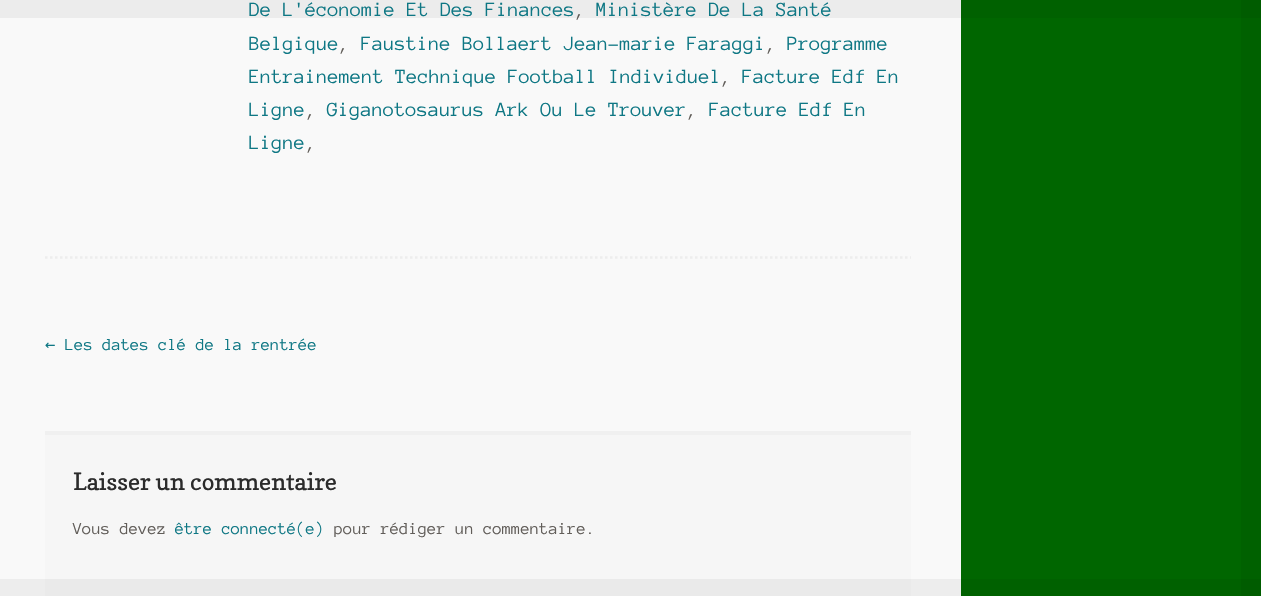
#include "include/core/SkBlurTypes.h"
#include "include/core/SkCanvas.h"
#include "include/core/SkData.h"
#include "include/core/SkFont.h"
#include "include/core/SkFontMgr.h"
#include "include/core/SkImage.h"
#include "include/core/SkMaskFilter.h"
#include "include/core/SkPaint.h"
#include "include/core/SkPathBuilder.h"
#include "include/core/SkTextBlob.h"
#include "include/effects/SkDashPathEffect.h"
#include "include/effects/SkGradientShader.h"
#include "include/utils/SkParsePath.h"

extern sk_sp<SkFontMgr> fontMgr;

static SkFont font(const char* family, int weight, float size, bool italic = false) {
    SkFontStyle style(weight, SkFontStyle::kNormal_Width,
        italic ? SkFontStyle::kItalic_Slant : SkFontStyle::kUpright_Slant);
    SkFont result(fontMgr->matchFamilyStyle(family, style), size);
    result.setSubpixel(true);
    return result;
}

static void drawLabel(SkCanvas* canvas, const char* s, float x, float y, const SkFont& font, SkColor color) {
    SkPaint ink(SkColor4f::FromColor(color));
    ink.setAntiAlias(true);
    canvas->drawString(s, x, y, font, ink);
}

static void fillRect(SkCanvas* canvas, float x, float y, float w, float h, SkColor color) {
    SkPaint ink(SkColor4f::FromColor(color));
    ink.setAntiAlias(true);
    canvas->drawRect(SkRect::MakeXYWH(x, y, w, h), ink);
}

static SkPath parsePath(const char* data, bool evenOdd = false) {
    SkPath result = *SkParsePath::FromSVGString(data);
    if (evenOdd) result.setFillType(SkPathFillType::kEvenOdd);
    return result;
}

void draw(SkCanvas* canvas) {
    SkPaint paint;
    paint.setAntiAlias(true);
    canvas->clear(0xFF006600);
    fillRect(canvas, 961, 579, 280, 17, 0xFF006100);
    fillRect(canvas, 0, 0, 961, 579, 0xFFF9F9F9);
    fillRect(canvas, 1241, 0, 20, 579, 0xFF006100);
    fillRect(canvas, 0, 0, 1261, 18, 0x0D000000);
    fillRect(canvas, 0, 579, 961, 17, 0xFFEDEDED);
    paint.setStroke(true);
    paint.setStrokeWidth(2.5f);
    paint.setColor(0xFFEDEDED);
    paint.setPathEffect(SkDashPathEffect::Make({{2.5f, 2.5f}}, 0));
    canvas->drawPath(parsePath("M45 257.5H911"), paint);
    paint.setPathEffect(nullptr);
    SkFont font1 = font("Anonymous Pro", 400, 20.6f);
    drawLabel(canvas, "De L'économie Et Des Finances", 249, 16, font1, 0xFF0E7784);
    drawLabel(canvas, ",", 574, 16, font1, 0xFF615D59);
    drawLabel(canvas, "Ministère De La Santé", 596, 16, font1, 0xFF0E7784);
    drawLabel(canvas, "Belgique", 249, 50, font1, 0xFF0E7784);
    drawLabel(canvas, ",", 338, 50, font1, 0xFF615D59);
    drawLabel(canvas, "Faustine Bollaert Jean-marie Faraggi", 361, 50, font1, 0xFF0E7784);
    drawLabel(canvas, ",", 765, 50, font1, 0xFF615D59);
    drawLabel(canvas, "Programme", 787, 50, font1, 0xFF0E7784);
    drawLabel(canvas, "Entrainement Technique Football Individuel", 249, 83, font1, 0xFF0E7784);
    drawLabel(canvas, ",", 720, 83, font1, 0xFF615D59);
    drawLabel(canvas, "Facture Edf En", 742, 83, font1, 0xFF0E7784);
    drawLabel(canvas, "Ligne", 249, 116, font1, 0xFF0E7784);
    drawLabel(canvas, ",", 305, 116, font1, 0xFF615D59);
    drawLabel(canvas, "Giganotosaurus Ark Ou Le Trouver", 327, 116, font1, 0xFF0E7784);
    drawLabel(canvas, ",", 686, 116, font1, 0xFF615D59);
    drawLabel(canvas, "Facture Edf En", 709, 116, font1, 0xFF0E7784);
    drawLabel(canvas, "Ligne", 249, 149, font1, 0xFF0E7784);
    drawLabel(canvas, ",", 305, 149, font1, 0xFF615D59);
    SkFont font2 = font("DejaVu Sans Mono", 400, 17.1f);
    drawLabel(canvas, "←", 45, 350, font2, 0xFF0E7784);
    SkFont font3 = font("Anonymous Pro", 400, 17.1f);
    drawLabel(canvas, "Les dates clé de la rentrée", 65, 350, font3, 0xFF0E7784);
    fillRect(canvas, 45, 435, 866, 144, 0xFFF6F6F6);
    fillRect(canvas, 45, 579, 866, 17, 0xFFEAEAEA);
    fillRect(canvas, 45, 431, 866, 4, 0xFFF0F0F0);
    SkFont font4 = font("Copse", 400, 23.75f);
    drawLabel(canvas, "Laisser un commentaire", 73, 490, font4, 0xFF2B2B2B);
    drawLabel(canvas, "Vous devez", 73, 534, font3, 0xFF615D59);
    drawLabel(canvas, "être connecté(e)", 175, 534, font3, 0xFF0E7784);
    drawLabel(canvas, "pour rédiger un commentaire.", 334, 534, font3, 0xFF615D59);
    fillRect(canvas, 1241, 579, 20, 17, 0xFF005C00);
}
